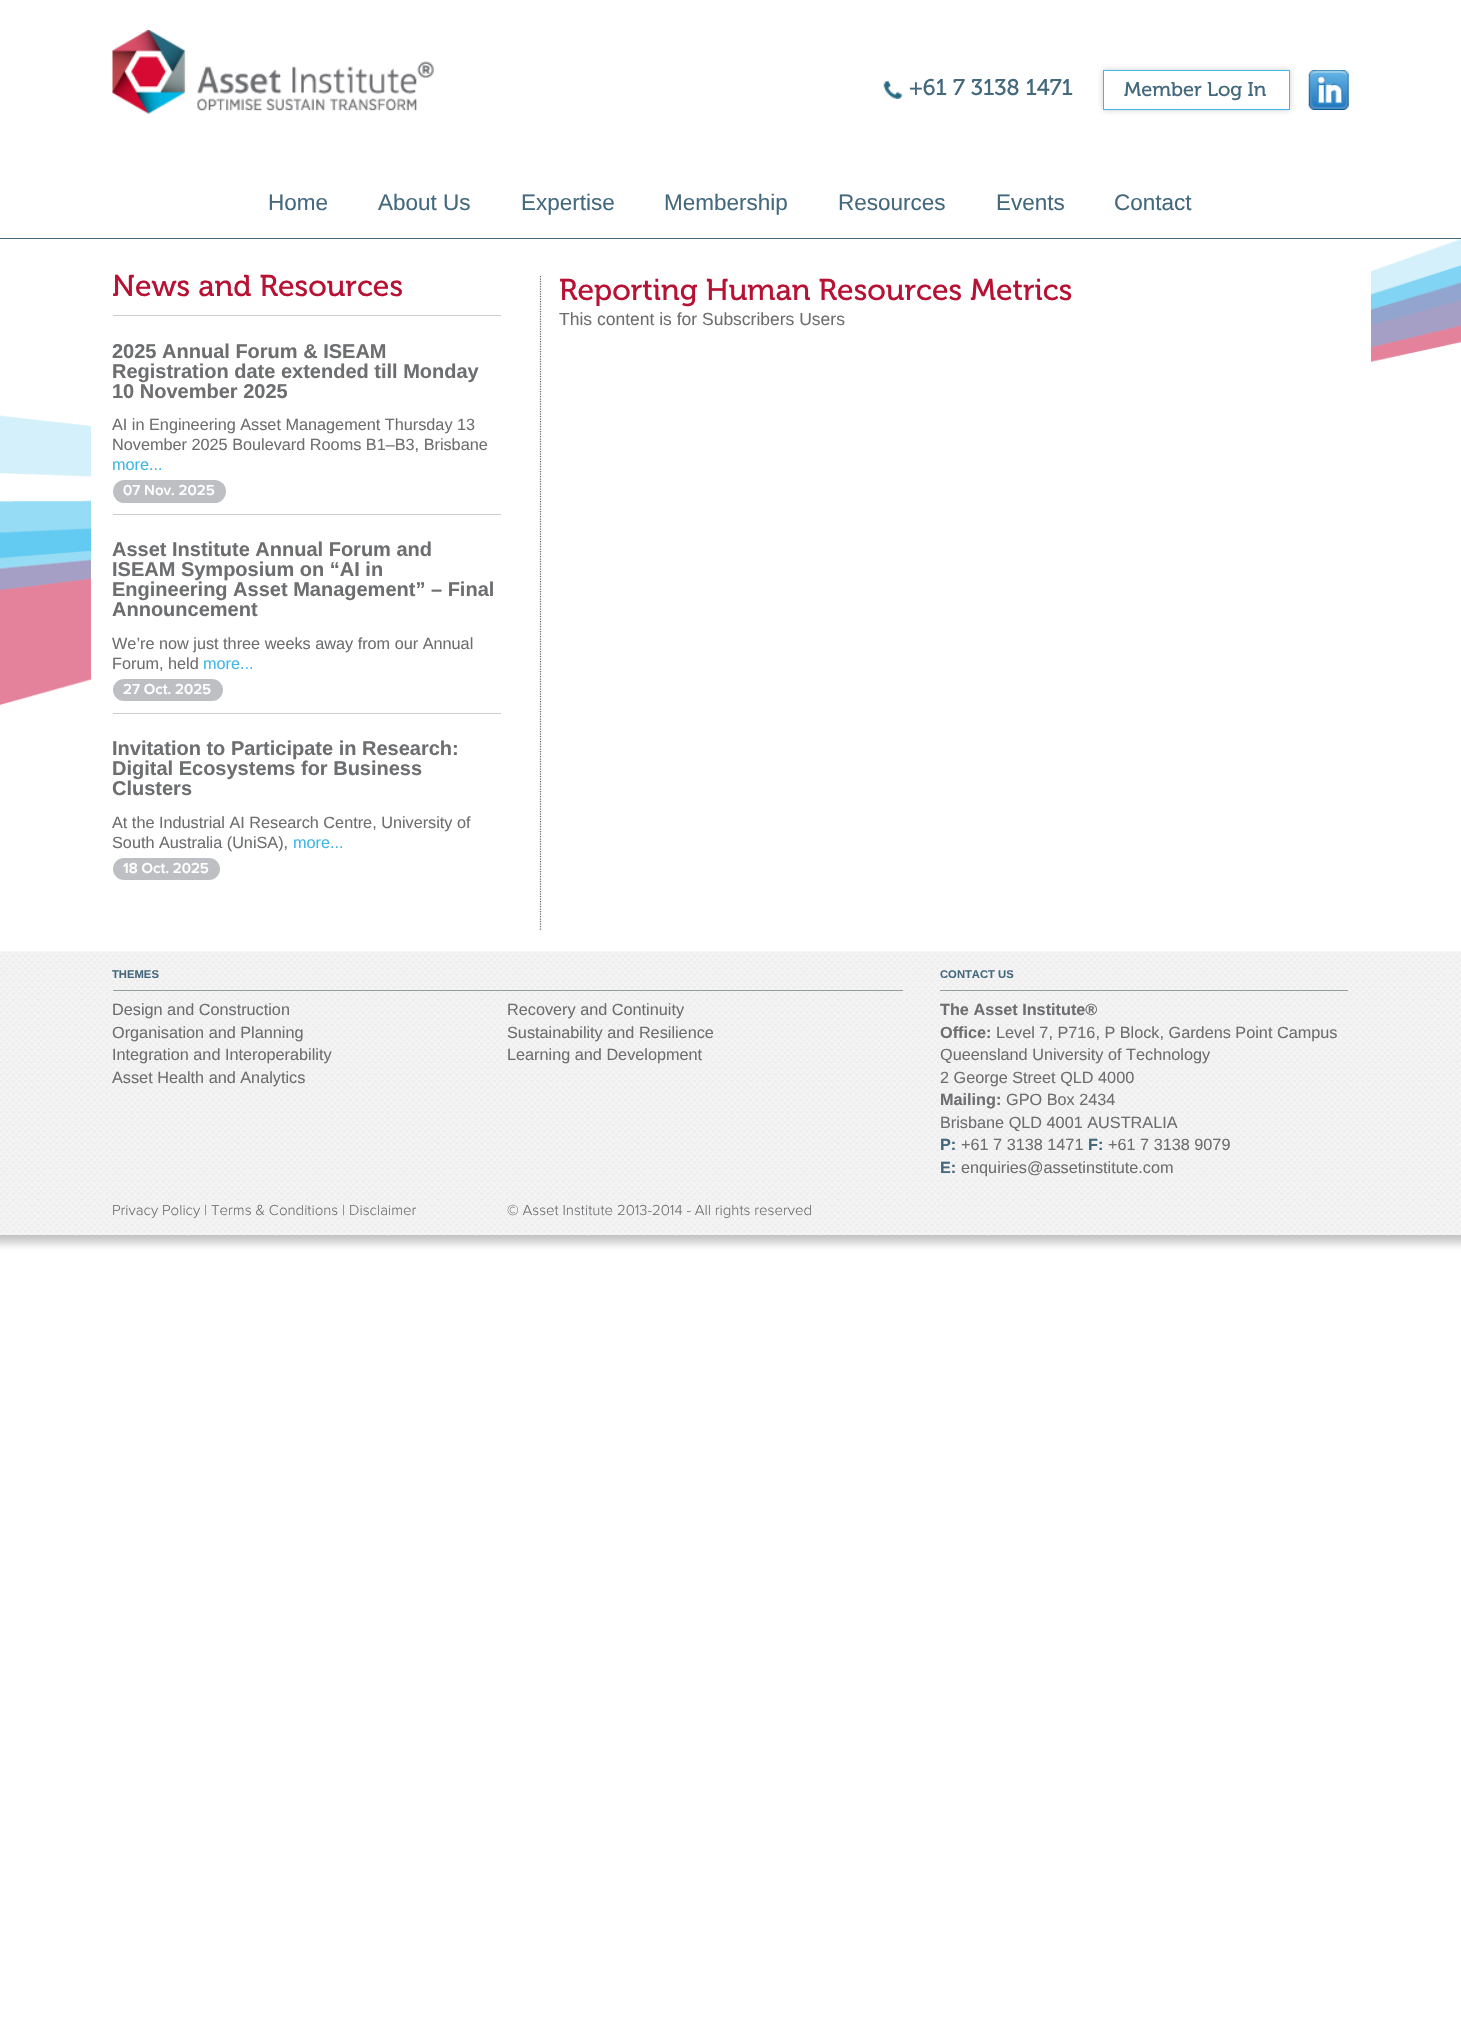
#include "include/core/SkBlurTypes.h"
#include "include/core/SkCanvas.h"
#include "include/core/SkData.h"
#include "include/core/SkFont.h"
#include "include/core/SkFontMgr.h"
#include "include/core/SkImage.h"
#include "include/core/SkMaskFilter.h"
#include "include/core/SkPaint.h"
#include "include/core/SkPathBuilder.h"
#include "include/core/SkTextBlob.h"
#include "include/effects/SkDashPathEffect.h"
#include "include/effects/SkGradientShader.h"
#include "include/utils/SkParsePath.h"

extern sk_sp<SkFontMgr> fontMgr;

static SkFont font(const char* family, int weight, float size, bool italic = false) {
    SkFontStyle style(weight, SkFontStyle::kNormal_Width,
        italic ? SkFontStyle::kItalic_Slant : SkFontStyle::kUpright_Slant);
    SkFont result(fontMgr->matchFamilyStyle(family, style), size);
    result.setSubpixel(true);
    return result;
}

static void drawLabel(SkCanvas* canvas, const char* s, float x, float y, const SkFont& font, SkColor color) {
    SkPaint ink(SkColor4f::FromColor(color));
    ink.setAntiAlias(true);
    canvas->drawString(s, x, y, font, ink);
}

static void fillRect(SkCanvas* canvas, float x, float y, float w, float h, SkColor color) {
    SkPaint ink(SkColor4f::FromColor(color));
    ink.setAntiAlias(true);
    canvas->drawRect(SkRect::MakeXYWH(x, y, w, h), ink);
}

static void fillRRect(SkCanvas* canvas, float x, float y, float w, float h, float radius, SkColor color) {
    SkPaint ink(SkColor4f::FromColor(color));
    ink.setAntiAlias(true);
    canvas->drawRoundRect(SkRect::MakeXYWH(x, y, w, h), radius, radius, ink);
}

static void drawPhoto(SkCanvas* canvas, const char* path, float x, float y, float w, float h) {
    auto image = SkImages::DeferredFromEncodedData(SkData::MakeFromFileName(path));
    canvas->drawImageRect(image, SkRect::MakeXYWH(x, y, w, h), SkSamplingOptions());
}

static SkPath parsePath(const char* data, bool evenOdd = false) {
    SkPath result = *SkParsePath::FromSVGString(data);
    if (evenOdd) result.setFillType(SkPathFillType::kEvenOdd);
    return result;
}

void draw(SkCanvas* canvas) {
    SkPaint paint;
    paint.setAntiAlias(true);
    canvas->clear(0xFFFFFFFF);
    fillRect(canvas, 0, 238, 1461, 1, 0xFF44697D);
    drawPhoto(canvas, "assets/img1.png", 112, 30, 322, 84);
    drawPhoto(canvas, "assets/img2.png", 883, 80, 20, 19);
    SkFont font1 = font("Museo", 400, 22.5f);
    drawLabel(canvas, "+61 7 3138 1471", 909, 95, font1, 0xFF44697D);
    canvas->save();
    canvas->clipPath(parsePath("M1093 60H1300V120H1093ZM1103 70H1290V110H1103Z", true), true);
    paint.setColor(0x40323232);
    paint.setMaskFilter(SkMaskFilter::MakeBlur(kNormal_SkBlurStyle, 3));
    canvas->drawRect(SkRect::MakeXYWH(1103, 70, 187, 40), paint);
    paint.setMaskFilter(nullptr);
    canvas->restore();
    paint.setStroke(true);
    paint.setStrokeWidth(1);
    paint.setColor(0xFF3DB7E4);
    canvas->drawRect(SkRect::MakeXYWH(1103.5f, 70.5f, 186, 39), paint);
    SkFont font2 = font("Museo", 400, 20);
    drawLabel(canvas, "Member Log In", 1124, 96, font2, 0xFF44697D);
    drawPhoto(canvas, "assets/img3.png", 1308, 70, 41, 40);
    SkFont font3 = font("Liberation Sans", 400, 22.5f);
    drawLabel(canvas, "Home", 268, 210, font3, 0xFF44697D);
    drawLabel(canvas, "About Us", 378, 210, font3, 0xFF44697D);
    drawLabel(canvas, "Expertise", 521, 210, font3, 0xFF44697D);
    drawLabel(canvas, "Membership", 664, 210, font3, 0xFF44697D);
    drawLabel(canvas, "Resources", 838, 210, font3, 0xFF44697D);
    drawLabel(canvas, "Events", 996, 210, font3, 0xFF44697D);
    drawLabel(canvas, "Contact", 1114, 210, font3, 0xFF44697D);
    drawPhoto(canvas, "assets/img4.png", 0, 239, 1461, 466);
    fillRect(canvas, 91, 271, 1280, 409, 0xFFFFFFFF);
    SkFont font4 = font("Museo", 400, 30);
    drawLabel(canvas, "News and Resources", 112, 296, font4, 0xFFB71234);
    fillRect(canvas, 113, 315, 388, 1, 0xFFC9CECE);
    SkFont font5 = font("Liberation Sans", 700, 20);
    drawLabel(canvas, "2025 Annual Forum & ISEAM", 112, 358, font5, 0xFF6D6E70);
    drawLabel(canvas, "Registration date extended till Monday", 112, 378, font5, 0xFF6D6E70);
    drawLabel(canvas, "10 November 2025", 112, 398, font5, 0xFF6D6E70);
    SkFont font6 = font("Liberation Sans", 400, 16.25f);
    drawLabel(canvas, "AI in Engineering Asset Management Thursday 13", 112, 430, font6, 0xFF6D6E70);
    drawLabel(canvas, "November 2025 Boulevard Rooms B1–B3, Brisbane", 112, 450, font6, 0xFF6D6E70);
    drawLabel(canvas, "more...", 112, 470, font6, 0xFF3DB7E4);
    fillRRect(canvas, 113, 480, 113, 23, 11.5f, 0xFFBDBFC3);
    SkFont font7 = font("Proxima Nova", 600, 15);
    drawLabel(canvas, "07 Nov. 2025", 123, 495, font7, 0xFFFFFFFF);
    fillRect(canvas, 113, 514, 388, 1, 0xFFC9CECE);
    drawLabel(canvas, "Asset Institute Annual Forum and", 112, 556, font5, 0xFF6D6E70);
    drawLabel(canvas, "ISEAM Symposium on “AI in", 112, 576, font5, 0xFF6D6E70);
    drawLabel(canvas, "Engineering Asset Management” – Final", 112, 596, font5, 0xFF6D6E70);
    drawLabel(canvas, "Announcement", 112, 616, font5, 0xFF6D6E70);
    drawLabel(canvas, "We’re now just three weeks away from our Annual", 112, 649, font6, 0xFF6D6E70);
    drawLabel(canvas, "Forum, held", 112, 669, font6, 0xFF6D6E70);
    drawLabel(canvas, "more...", 203, 669, font6, 0xFF3DB7E4);
    fillRRect(canvas, 113, 679, 110, 22, 11, 0xFFBDBFC3);
    drawLabel(canvas, "27 Oct. 2025", 123, 694, font7, 0xFFFFFFFF);
    fillRect(canvas, 113, 713, 388, 1, 0xFFC9CECE);
    drawLabel(canvas, "Invitation to Participate in Research:", 112, 755, font5, 0xFF6D6E70);
    drawLabel(canvas, "Digital Ecosystems for Business", 112, 775, font5, 0xFF6D6E70);
    drawLabel(canvas, "Clusters", 112, 795, font5, 0xFF6D6E70);
    drawLabel(canvas, "At the Industrial AI Research Centre, University of", 112, 828, font6, 0xFF6D6E70);
    drawLabel(canvas, "South Australia (UniSA),", 112, 848, font6, 0xFF6D6E70);
    drawLabel(canvas, "more...", 293, 848, font6, 0xFF3DB7E4);
    fillRRect(canvas, 113, 858, 107, 22, 11, 0xFFBDBFC3);
    drawLabel(canvas, "18 Oct. 2025", 123, 873, font7, 0xFFFFFFFF);
    paint.setStrokeWidth(1.2f);
    paint.setColor(0xFF666666);
    paint.setPathEffect(SkDashPathEffect::Make({{1.25f, 1.25f}}, 0));
    canvas->drawPath(parsePath("M540.5 276V930"), paint);
    paint.setPathEffect(nullptr);
    drawLabel(canvas, "Reporting Human Resources Metrics", 559, 300, font4, 0xFFB71234);
    SkFont font8 = font("Liberation Sans", 400, 17.5f);
    drawLabel(canvas, "This content is for Subscribers Users", 559, 325, font8, 0xFF6D6E70);
    drawPhoto(canvas, "assets/img5.png", 0, 951, 1461, 284);
    fillRect(canvas, 113, 990, 790, 1, 0xFF949D9E);
    SkFont font9 = font("Liberation Sans", 700, 11.25f);
    drawLabel(canvas, "THEMES", 112, 978, font9, 0xFF44697D);
    drawLabel(canvas, "Design and Construction", 112, 1015, font6, 0xFF6D6E70);
    drawLabel(canvas, "Organisation and Planning", 112, 1038, font6, 0xFF6D6E70);
    drawLabel(canvas, "Integration and Interoperability", 112, 1060, font6, 0xFF6D6E70);
    drawLabel(canvas, "Asset Health and Analytics", 112, 1083, font6, 0xFF6D6E70);
    drawLabel(canvas, "Recovery and Continuity", 507, 1015, font6, 0xFF6D6E70);
    drawLabel(canvas, "Sustainability and Resilience", 507, 1038, font6, 0xFF6D6E70);
    drawLabel(canvas, "Learning and Development", 507, 1060, font6, 0xFF6D6E70);
    fillRect(canvas, 940, 990, 408, 1, 0xFF949D9E);
    drawLabel(canvas, "CONTACT US", 940, 978, font9, 0xFF44697D);
    SkFont font10 = font("Liberation Sans", 700, 16.25f);
    drawLabel(canvas, "The Asset Institute®", 940, 1015, font10, 0xFF6D6E70);
    drawLabel(canvas, "Office:", 940, 1038, font10, 0xFF6D6E70);
    drawLabel(canvas, "Level 7, P716, P Block, Gardens Point Campus", 996, 1038, font6, 0xFF6D6E70);
    drawLabel(canvas, "Queensland University of Technology", 940, 1060, font6, 0xFF6D6E70);
    drawLabel(canvas, "2 George Street QLD 4000", 940, 1083, font6, 0xFF6D6E70);
    drawLabel(canvas, "Mailing:", 940, 1105, font10, 0xFF6D6E70);
    drawLabel(canvas, "GPO Box 2434", 1006, 1105, font6, 0xFF6D6E70);
    drawLabel(canvas, "Brisbane QLD 4001 AUSTRALIA", 940, 1128, font6, 0xFF6D6E70);
    drawLabel(canvas, "P:", 940, 1150, font10, 0xFF44697D);
    drawLabel(canvas, "+61 7 3138 1471", 961, 1150, font6, 0xFF6D6E70);
    drawLabel(canvas, "F:", 1088, 1150, font10, 0xFF44697D);
    drawLabel(canvas, "+61 7 3138 9079", 1108, 1150, font6, 0xFF6D6E70);
    drawLabel(canvas, "E:", 940, 1173, font10, 0xFF44697D);
    drawLabel(canvas, "enquiries@assetinstitute.com", 961, 1173, font6, 0xFF6D6E70);
    SkFont font11 = font("Proxima Nova", 300, 15);
    drawLabel(canvas, "Privacy Policy | Terms & Conditions | Disclaimer", 112, 1215, font11, 0xFF6D6E70);
    drawLabel(canvas, "© Asset Institute 2013-2014 - All rights reserved", 507, 1215, font11, 0xFF6D6E70);
    drawPhoto(canvas, "assets/img6.png", 0, 1235, 1461, 14);
}
